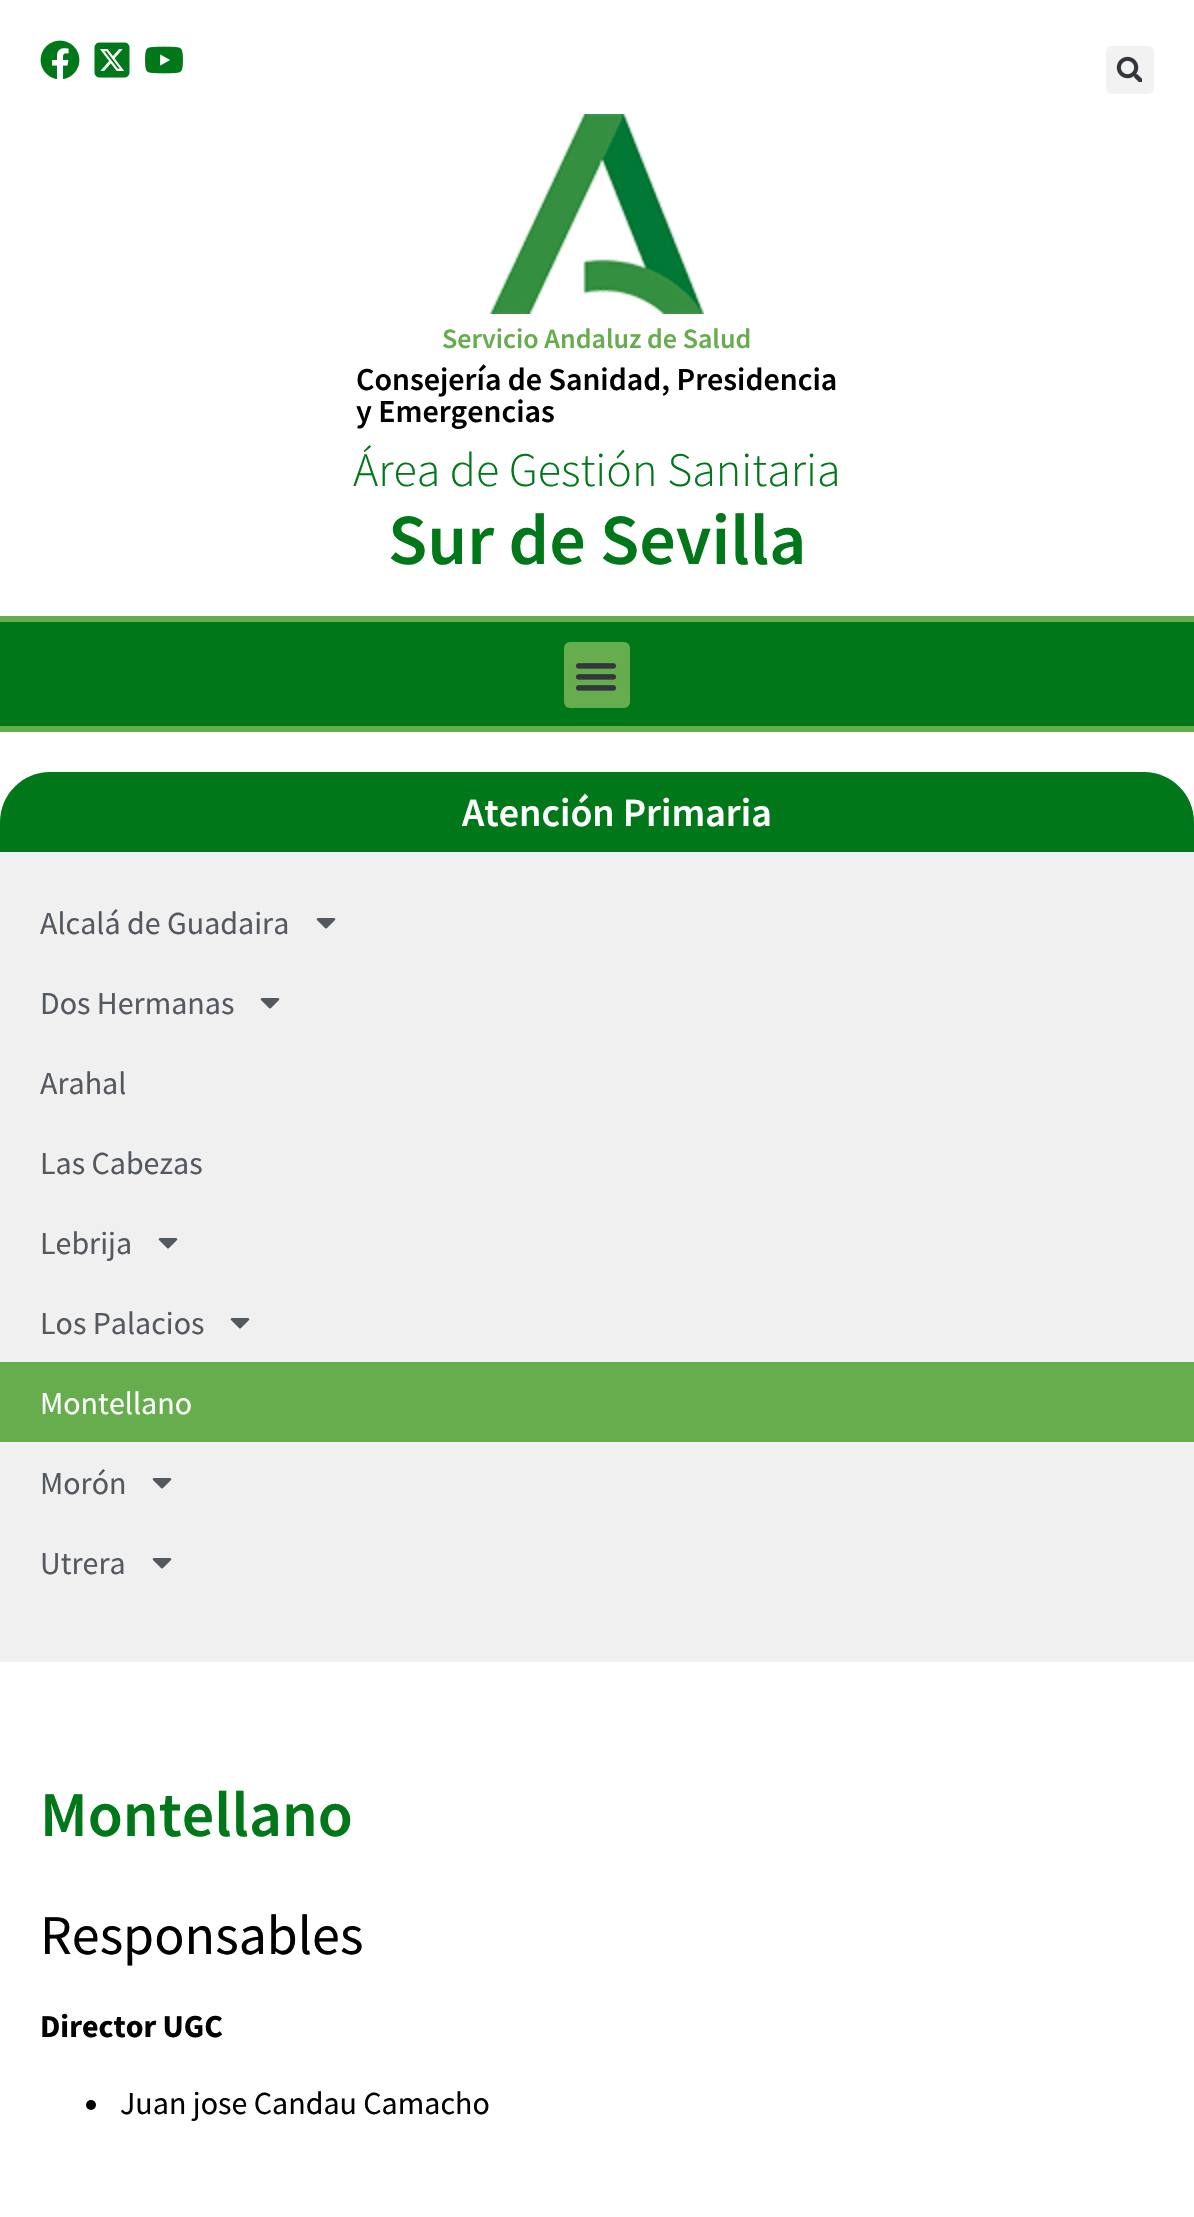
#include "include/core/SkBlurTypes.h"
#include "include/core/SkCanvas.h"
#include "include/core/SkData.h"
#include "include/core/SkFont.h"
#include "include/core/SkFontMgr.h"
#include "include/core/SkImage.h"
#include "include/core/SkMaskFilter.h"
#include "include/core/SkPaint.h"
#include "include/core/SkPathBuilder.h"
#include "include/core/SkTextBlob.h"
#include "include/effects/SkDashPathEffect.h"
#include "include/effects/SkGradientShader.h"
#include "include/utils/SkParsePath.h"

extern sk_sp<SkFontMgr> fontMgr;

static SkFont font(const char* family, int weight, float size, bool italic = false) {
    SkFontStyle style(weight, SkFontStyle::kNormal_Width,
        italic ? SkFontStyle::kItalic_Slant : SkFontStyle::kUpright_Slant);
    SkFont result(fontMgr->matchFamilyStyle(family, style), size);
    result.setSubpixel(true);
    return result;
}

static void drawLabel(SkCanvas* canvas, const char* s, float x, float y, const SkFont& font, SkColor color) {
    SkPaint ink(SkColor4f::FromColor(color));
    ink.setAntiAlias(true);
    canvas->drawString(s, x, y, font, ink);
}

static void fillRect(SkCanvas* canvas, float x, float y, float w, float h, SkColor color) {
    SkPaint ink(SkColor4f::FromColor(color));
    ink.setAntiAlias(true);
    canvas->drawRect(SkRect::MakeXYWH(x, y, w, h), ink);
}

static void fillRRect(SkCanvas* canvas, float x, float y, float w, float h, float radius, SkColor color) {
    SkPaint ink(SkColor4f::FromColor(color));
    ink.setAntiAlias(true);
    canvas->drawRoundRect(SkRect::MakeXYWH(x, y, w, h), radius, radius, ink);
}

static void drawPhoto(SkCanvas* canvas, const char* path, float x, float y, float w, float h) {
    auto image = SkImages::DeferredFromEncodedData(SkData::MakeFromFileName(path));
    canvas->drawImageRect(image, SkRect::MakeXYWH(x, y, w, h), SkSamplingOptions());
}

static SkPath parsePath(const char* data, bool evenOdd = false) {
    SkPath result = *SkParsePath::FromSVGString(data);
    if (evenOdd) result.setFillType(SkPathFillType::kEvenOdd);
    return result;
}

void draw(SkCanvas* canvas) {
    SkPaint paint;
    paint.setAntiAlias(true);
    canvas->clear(0xFFFFFFFF);
    drawPhoto(canvas, "assets/img1.png", 40, 40, 40, 40);
    drawPhoto(canvas, "assets/img2.png", 94, 42, 36, 36);
    drawPhoto(canvas, "assets/img3.png", 145, 46, 38, 28);
    fillRRect(canvas, 1106, 46, 48, 48, 6, 0xFFF2F2F2);
    drawPhoto(canvas, "assets/img4.png", 1116, 56, 26, 26);
    drawPhoto(canvas, "assets/img5.png", 490, 114, 214, 200);
    SkFont font1 = font("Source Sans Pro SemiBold", 600, 28);
    drawLabel(canvas, "Servicio Andaluz de Salud", 442, 348, font1, 0xFF66AD4D);
    SkFont font2 = font("Source Sans Pro SemiBold", 600, 32);
    drawLabel(canvas, "Consejería de Sanidad, Presidencia", 356, 390, font2, 0xFF000000);
    drawLabel(canvas, "y Emergencias", 356, 422, font2, 0xFF000000);
    SkFont font3 = font("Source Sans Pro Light", 300, 48);
    drawLabel(canvas, "Área de Gestión Sanitaria", 353, 486, font3, 0xFF007819);
    SkFont font4 = font("Source Sans Pro SemiBold", 600, 72);
    drawLabel(canvas, "Sur de Sevilla", 388, 564, font4, 0xFF007819);
    fillRect(canvas, 0, 622, 1194, 104, 0xFF007819);
    fillRect(canvas, 0, 616, 1194, 6, 0xFF66AD4D);
    fillRect(canvas, 0, 726, 1194, 6, 0xFF66AD4D);
    fillRRect(canvas, 564, 642, 66, 66, 6, 0xFF66AD4D);
    drawPhoto(canvas, "assets/img6.png", 575, 663, 42, 28);
    paint.setColor(0xFFF0F0F0);
    canvas->drawPath(parsePath("M60 772H1134C1167 772 1194 799 1194 832V1662H0V832C0 799 27 772 60 772Z"), paint);
    paint.setColor(0xFF007819);
    canvas->drawPath(parsePath("M50 772H1144C1171.5 772 1194 794.5 1194 822V852H0V822C0 794.5 22.5 772 50 772Z"), paint);
    SkFont font5 = font("Source Sans Pro SemiBold", 600, 40);
    drawLabel(canvas, "Atención Primaria", 462, 826, font5, 0xFFFFFFFF);
    SkFont font6 = font("Source Sans Pro", 400, 32);
    drawLabel(canvas, "Alcalá de Guadaira", 40, 934, font6, 0xFF54595F);
    drawPhoto(canvas, "assets/img7.png", 316, 918, 20, 11);
    drawLabel(canvas, "Dos Hermanas", 40, 1014, font6, 0xFF54595F);
    drawPhoto(canvas, "assets/img7.png", 260, 998, 20, 11);
    drawLabel(canvas, "Arahal", 40, 1094, font6, 0xFF54595F);
    drawLabel(canvas, "Las Cabezas", 40, 1174, font6, 0xFF54595F);
    drawLabel(canvas, "Lebrija", 40, 1254, font6, 0xFF54595F);
    drawPhoto(canvas, "assets/img7.png", 158, 1238, 20, 11);
    drawLabel(canvas, "Los Palacios", 40, 1334, font6, 0xFF54595F);
    drawPhoto(canvas, "assets/img7.png", 230, 1318, 20, 11);
    fillRect(canvas, 0, 1362, 1194, 80, 0xFF66AD4D);
    drawLabel(canvas, "Montellano", 40, 1414, font6, 0xFFFFFFFF);
    drawLabel(canvas, "Morón", 40, 1494, font6, 0xFF54595F);
    drawPhoto(canvas, "assets/img7.png", 152, 1478, 20, 11);
    drawLabel(canvas, "Utrera", 40, 1574, font6, 0xFF54595F);
    drawPhoto(canvas, "assets/img7.png", 152, 1558, 20, 11);
    SkFont font7 = font("Source Sans Pro SemiBold", 600, 64);
    drawLabel(canvas, "Montellano", 40, 1836, font7, 0xFF007819);
    SkFont font8 = font("Source Sans Pro", 400, 56);
    drawLabel(canvas, "Responsables", 40, 1954, font8, 0xFF000000);
    SkFont font9 = font("Source Sans Pro", 700, 32);
    drawLabel(canvas, "Director UGC", 40, 2037, font9, 0xFF000000);
    paint.setColor(0xFF000000);
    canvas->drawCircle(91, 2105, 5, paint);
    drawLabel(canvas, "Juan jose Candau Camacho", 120, 2114, font6, 0xFF000000);
}
